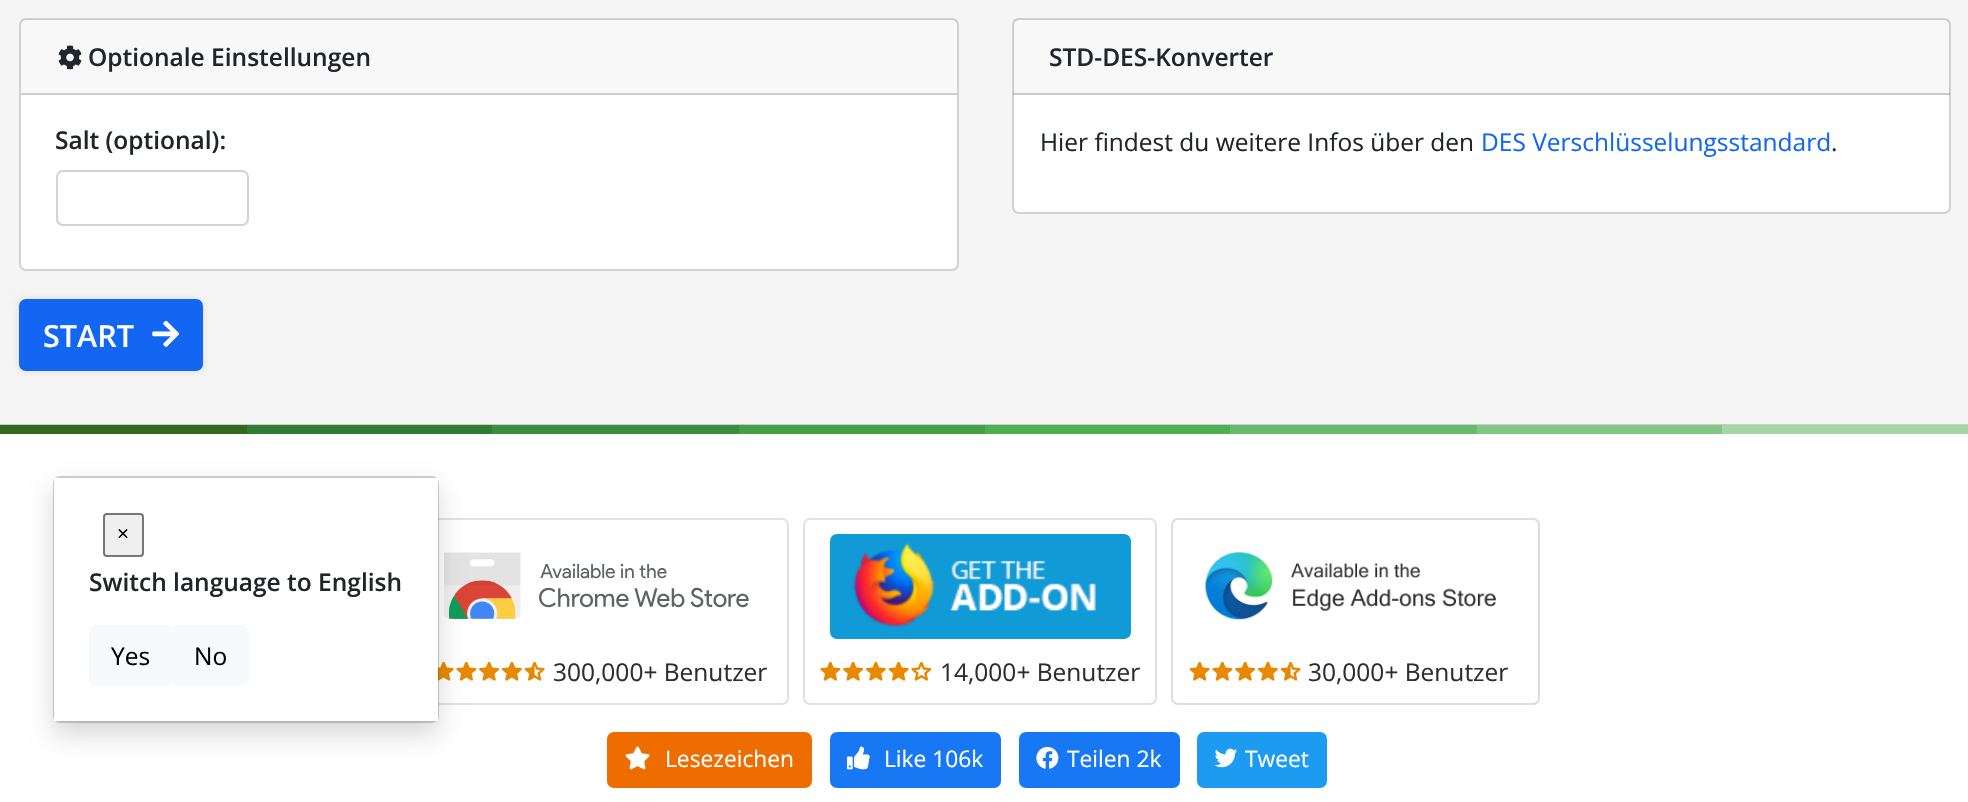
#include "include/core/SkBlurTypes.h"
#include "include/core/SkCanvas.h"
#include "include/core/SkData.h"
#include "include/core/SkFont.h"
#include "include/core/SkFontMgr.h"
#include "include/core/SkImage.h"
#include "include/core/SkMaskFilter.h"
#include "include/core/SkPaint.h"
#include "include/core/SkPathBuilder.h"
#include "include/core/SkTextBlob.h"
#include "include/effects/SkDashPathEffect.h"
#include "include/effects/SkGradientShader.h"
#include "include/utils/SkParsePath.h"

extern sk_sp<SkFontMgr> fontMgr;

static SkFont font(const char* family, int weight, float size, bool italic = false) {
    SkFontStyle style(weight, SkFontStyle::kNormal_Width,
        italic ? SkFontStyle::kItalic_Slant : SkFontStyle::kUpright_Slant);
    SkFont result(fontMgr->matchFamilyStyle(family, style), size);
    result.setSubpixel(true);
    return result;
}

static void drawLabel(SkCanvas* canvas, const char* s, float x, float y, const SkFont& font, SkColor color) {
    SkPaint ink(SkColor4f::FromColor(color));
    ink.setAntiAlias(true);
    canvas->drawString(s, x, y, font, ink);
}

static void fillRect(SkCanvas* canvas, float x, float y, float w, float h, SkColor color) {
    SkPaint ink(SkColor4f::FromColor(color));
    ink.setAntiAlias(true);
    canvas->drawRect(SkRect::MakeXYWH(x, y, w, h), ink);
}

static void fillRRect(SkCanvas* canvas, float x, float y, float w, float h, float radius, SkColor color) {
    SkPaint ink(SkColor4f::FromColor(color));
    ink.setAntiAlias(true);
    canvas->drawRoundRect(SkRect::MakeXYWH(x, y, w, h), radius, radius, ink);
}

static void drawPhoto(SkCanvas* canvas, const char* path, float x, float y, float w, float h) {
    auto image = SkImages::DeferredFromEncodedData(SkData::MakeFromFileName(path));
    canvas->drawImageRect(image, SkRect::MakeXYWH(x, y, w, h), SkSamplingOptions());
}

void draw(SkCanvas* canvas) {
    SkPaint paint;
    paint.setAntiAlias(true);
    canvas->clear(0xFFF5F5F5);
    fillRRect(canvas, 19, 18, 940, 253, 7, 0xFFFFFFFF);
    paint.setStroke(true);
    paint.setStrokeWidth(2);
    paint.setColor(0x2E000000);
    canvas->drawRoundRect(SkRect::MakeXYWH(20, 19, 938, 251), 6, 6, paint);
    fillRect(canvas, 21, 19, 936, 74, 0x08212529);
    fillRect(canvas, 21, 93, 936, 2, 0xFFCDCDCD);
    drawPhoto(canvas, "assets/img1.png", 58, 45, 24, 25);
    SkFont font1 = font("Open Sans", 600, 24.5f);
    drawLabel(canvas, "Optionale Einstellungen", 88, 66, font1, 0xFF212529);
    drawLabel(canvas, "Salt (optional):", 55, 149, font1, 0xFF212529);
    paint.setColor(0xFFCED4DA);
    canvas->drawRoundRect(SkRect::MakeXYWH(57, 171, 191, 54), 6, 6, paint);
    paint.setStroke(false);
    paint.setColor(0x1A000000);
    paint.setMaskFilter(SkMaskFilter::MakeBlur(kNormal_SkBlurStyle, 4.5f));
    canvas->drawRoundRect(SkRect::MakeXYWH(19, 299, 184, 72), 7, 7, paint);
    paint.setMaskFilter(nullptr);
    fillRRect(canvas, 19, 299, 184, 72, 7, 0xFF1266F1);
    SkFont font2 = font("Open Sans", 600, 30.5f);
    drawLabel(canvas, "START", 43, 347, font2, 0xFFFFFFFF);
    drawPhoto(canvas, "assets/img2.png", 152, 320, 27, 27);
    fillRRect(canvas, 1012, 18, 939, 196, 7, 0xFFFFFFFF);
    paint.setStroke(true);
    paint.setColor(0x2E000000);
    canvas->drawRoundRect(SkRect::MakeXYWH(1013, 19, 937, 194), 6, 6, paint);
    fillRect(canvas, 1013, 19, 937, 76, 0x08212529);
    fillRect(canvas, 1013, 93, 937, 2, 0x2E000000);
    drawLabel(canvas, "STD-DES-Konverter", 1049, 66, font1, 0xFF212529);
    SkFont font3 = font("Open Sans", 400, 24.5f);
    drawLabel(canvas, "Hier findest du weitere Infos über den", 1040, 151, font3, 0xFF212529);
    drawLabel(canvas, "DES Verschlüsselungsstandard", 1481, 151, font3, 0xFF1266F1);
    drawLabel(canvas, ".", 1831, 151, font3, 0xFF212529);
    fillRect(canvas, 0, 434, 1968, 368, 0xFFFFFFFF);
    paint.setColor(0xFFDEE2E6);
    canvas->drawRoundRect(SkRect::MakeXYWH(412, 519, 376, 185), 6, 6, paint);
    drawPhoto(canvas, "assets/img3.png", 444, 552, 305, 67);
    drawPhoto(canvas, "assets/img4.png", 438, 662, 16, 19);
    drawPhoto(canvas, "assets/img5.png", 456, 662, 21, 19);
    paint.setStroke(false);
    paint.setColor(0x26000000);
    paint.setMaskFilter(SkMaskFilter::MakeBlur(kNormal_SkBlurStyle, 12));
    canvas->drawRoundRect(SkRect::MakeXYWH(53, 488, 386, 247), 7, 7, paint);
    paint.setMaskFilter(nullptr);
    paint.setStroke(true);
    paint.setColor(0x2E000000);
    canvas->drawRoundRect(SkRect::MakeXYWH(54, 477, 384, 245), 6, 6, paint);
    fillRect(canvas, 54, 478, 384, 243, 0xFFFFFFFF);
    paint.setStroke(false);
    paint.setColor(0xFFEFEFEF);
    canvas->drawRoundRect(SkRect::MakeXYWH(104, 514, 39, 42), 3, 3, paint);
    paint.setStroke(true);
    paint.setColor(0xFF767676);
    canvas->drawRoundRect(SkRect::MakeXYWH(104, 514, 39, 42), 3, 3, paint);
    SkFont font4 = font("Open Sans", 400, 21);
    drawLabel(canvas, "×", 117, 541, font4, 0xFF000000);
    drawLabel(canvas, "Switch language to English", 89, 591, font1, 0xFF212529);
    fillRRect(canvas, 89, 625, 83, 61, 7, 0xFFF8F9FA);
    drawLabel(canvas, "Yes", 111, 665, font3, 0xFF000000);
    fillRRect(canvas, 172, 625, 77, 61, 7, 0xFFF8F9FA);
    drawLabel(canvas, "No", 194, 665, font3, 0xFF000000);
    fillRect(canvas, 0, 424, 1968, 1, 0xFFCCCCCC);
    fillRect(canvas, 0, 425, 247, 9, 0xFF33691E);
    fillRect(canvas, 247, 425, 245, 9, 0xFF2E7D32);
    fillRect(canvas, 492, 425, 247, 9, 0xFF388E3C);
    fillRect(canvas, 739, 425, 246, 9, 0xFF43A047);
    fillRect(canvas, 985, 425, 245, 9, 0xFF4CAF50);
    fillRect(canvas, 1230, 425, 247, 9, 0xFF66BB6A);
    fillRect(canvas, 1477, 425, 245, 9, 0xFF81C784);
    fillRect(canvas, 1722, 425, 246, 9, 0xFFA5D6A7);
    drawPhoto(canvas, "assets/img6.png", 479, 662, 21, 19);
    drawPhoto(canvas, "assets/img7.png", 501, 662, 21, 19);
    drawPhoto(canvas, "assets/img8.png", 524, 662, 21, 19);
    drawLabel(canvas, "300,000+ Benutzer", 553, 681, font3, 0xFF2E2E2E);
    paint.setColor(0xFFDEE2E6);
    canvas->drawRoundRect(SkRect::MakeXYWH(804, 519, 352, 185), 6, 6, paint);
    fillRRect(canvas, 830, 534, 301, 105, 7, 0xFF109AD6);
    drawPhoto(canvas, "assets/img9.png", 853, 543, 243, 84);
    drawPhoto(canvas, "assets/img5.png", 820, 662, 21, 19);
    drawPhoto(canvas, "assets/img6.png", 843, 662, 21, 19);
    drawPhoto(canvas, "assets/img7.png", 865, 662, 21, 19);
    drawPhoto(canvas, "assets/img10.png", 888, 662, 21, 19);
    drawPhoto(canvas, "assets/img11.png", 911, 662, 21, 19);
    drawLabel(canvas, "14,000+ Benutzer", 940, 681, font3, 0xFF2E2E2E);
    paint.setColor(0xFFDDDDDD);
    canvas->drawRoundRect(SkRect::MakeXYWH(1172, 519, 367, 185), 6, 6, paint);
    drawPhoto(canvas, "assets/img12.png", 1205, 552, 291, 68);
    drawPhoto(canvas, "assets/img10.png", 1189, 662, 21, 19);
    drawPhoto(canvas, "assets/img5.png", 1212, 662, 21, 19);
    drawPhoto(canvas, "assets/img6.png", 1235, 662, 21, 19);
    drawPhoto(canvas, "assets/img7.png", 1257, 662, 21, 19);
    drawPhoto(canvas, "assets/img8.png", 1280, 662, 21, 19);
    drawLabel(canvas, "30,000+ Benutzer", 1308, 681, font3, 0xFF2E2E2E);
    fillRRect(canvas, 607, 732, 205, 56, 7, 0xFFEF6C00);
    drawPhoto(canvas, "assets/img13.png", 625, 746, 25, 24);
    SkFont font5 = font("Open Sans", 400, 22.75f);
    drawLabel(canvas, "Lesezeichen", 665, 767, font5, 0xFFFFFFFF);
    fillRRect(canvas, 830, 732, 171, 56, 7, 0xFF1877F2);
    drawPhoto(canvas, "assets/img14.png", 847, 746, 23, 24);
    drawLabel(canvas, "Like 106k", 884, 767, font5, 0xFFFFFFFF);
    fillRRect(canvas, 1019, 732, 161, 56, 7, 0xFF1877F2);
    drawPhoto(canvas, "assets/img15.png", 1036, 746, 23, 23);
    drawLabel(canvas, "Teilen 2k", 1067, 767, font5, 0xFFFFFFFF);
    fillRRect(canvas, 1197, 732, 130, 56, 7, 0xFF1D9BF0);
    drawPhoto(canvas, "assets/img16.png", 1214, 748, 23, 20);
    drawLabel(canvas, "Tweet", 1245, 767, font5, 0xFFFFFFFF);
}
